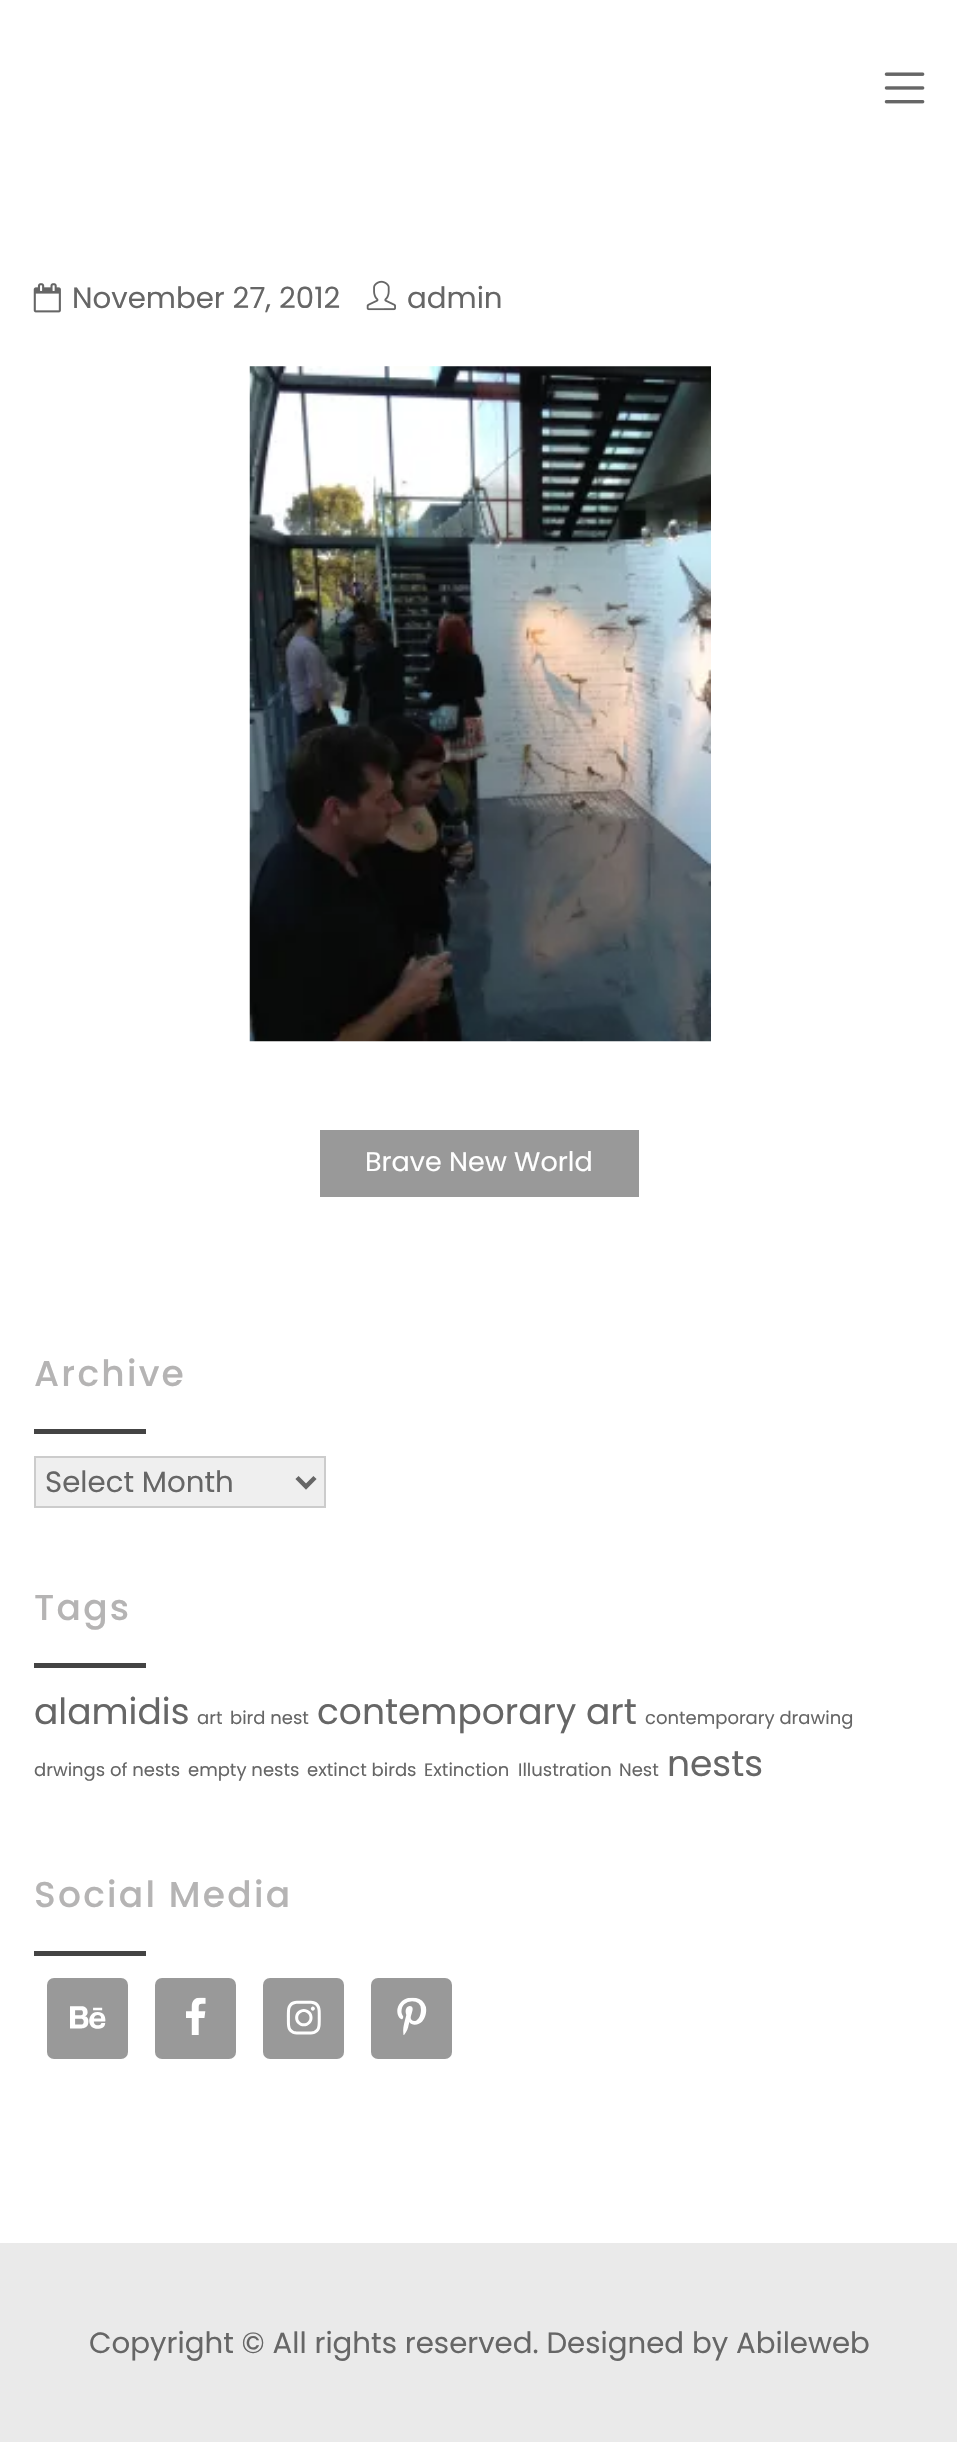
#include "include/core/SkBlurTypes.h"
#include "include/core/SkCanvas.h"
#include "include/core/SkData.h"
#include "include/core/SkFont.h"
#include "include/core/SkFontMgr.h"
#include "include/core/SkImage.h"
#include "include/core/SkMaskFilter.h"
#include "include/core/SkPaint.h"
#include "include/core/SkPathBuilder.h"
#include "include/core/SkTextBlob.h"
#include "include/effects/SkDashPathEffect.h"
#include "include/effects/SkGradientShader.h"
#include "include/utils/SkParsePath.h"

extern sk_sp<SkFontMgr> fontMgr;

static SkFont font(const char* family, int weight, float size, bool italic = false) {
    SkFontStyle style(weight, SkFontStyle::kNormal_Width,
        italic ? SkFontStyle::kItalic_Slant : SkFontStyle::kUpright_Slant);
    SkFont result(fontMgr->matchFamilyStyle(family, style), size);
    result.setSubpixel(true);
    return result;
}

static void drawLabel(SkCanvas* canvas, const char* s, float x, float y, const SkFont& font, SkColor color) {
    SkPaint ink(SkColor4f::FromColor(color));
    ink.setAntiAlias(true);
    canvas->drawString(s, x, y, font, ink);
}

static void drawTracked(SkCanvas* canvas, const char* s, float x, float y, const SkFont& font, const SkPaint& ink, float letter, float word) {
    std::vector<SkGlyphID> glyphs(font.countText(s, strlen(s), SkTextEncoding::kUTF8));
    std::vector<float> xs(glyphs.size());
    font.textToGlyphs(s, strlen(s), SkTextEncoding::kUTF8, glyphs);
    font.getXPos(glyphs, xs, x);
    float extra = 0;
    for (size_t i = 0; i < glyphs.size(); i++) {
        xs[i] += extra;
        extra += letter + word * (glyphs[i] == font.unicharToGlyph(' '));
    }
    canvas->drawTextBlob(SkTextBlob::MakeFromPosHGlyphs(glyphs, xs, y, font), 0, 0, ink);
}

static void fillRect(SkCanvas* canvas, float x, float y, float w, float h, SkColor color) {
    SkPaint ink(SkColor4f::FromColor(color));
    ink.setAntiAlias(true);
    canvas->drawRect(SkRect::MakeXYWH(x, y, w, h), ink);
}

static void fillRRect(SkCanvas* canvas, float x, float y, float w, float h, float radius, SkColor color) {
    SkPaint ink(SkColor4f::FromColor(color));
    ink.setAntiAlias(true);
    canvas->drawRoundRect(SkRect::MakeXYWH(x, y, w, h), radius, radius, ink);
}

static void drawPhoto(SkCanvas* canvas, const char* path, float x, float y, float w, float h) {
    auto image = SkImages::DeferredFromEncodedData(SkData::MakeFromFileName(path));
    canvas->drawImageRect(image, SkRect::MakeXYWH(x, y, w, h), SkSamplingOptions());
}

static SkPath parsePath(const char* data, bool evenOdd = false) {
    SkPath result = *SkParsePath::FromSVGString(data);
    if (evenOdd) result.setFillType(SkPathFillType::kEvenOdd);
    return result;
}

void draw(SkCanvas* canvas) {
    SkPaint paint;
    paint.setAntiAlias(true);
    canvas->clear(0xFFFFFFFF);
    drawPhoto(canvas, "assets/img1.png", 884, 72, 41, 32);
    drawPhoto(canvas, "assets/img2.png", 33, 283, 28, 30);
    SkFont font1 = font("Poppins", 400, 29.25f);
    drawLabel(canvas, "November 27, 2012", 72, 308, font1, 0xFF666666);
    drawPhoto(canvas, "assets/img3.png", 366, 280, 30, 31);
    drawLabel(canvas, "admin", 407, 308, font1, 0xFF666666);
    drawPhoto(canvas, "assets/img4.png", 249, 366, 462, 676);
    fillRect(canvas, 320, 1130, 319, 67, 0xFF999999);
    SkFont font2 = font("Poppins", 400, 27);
    drawLabel(canvas, "Brave New World", 365, 1171, font2, 0xFFFFFFFF);
    SkFont font3 = font("Poppins", 500, 36);
    paint.setColor(0xFFB5B4B4);
    drawTracked(canvas, "Archive", 34, 1386, font3, paint, 2.25f, 0);
    fillRect(canvas, 34, 1429, 112, 5, 0xFF444444);
    paint.setColor(0xFFEFEFEF);
    canvas->drawRect(SkRect::MakeXYWH(35, 1457, 290, 50), paint);
    paint.setStroke(true);
    paint.setStrokeWidth(2);
    paint.setColor(0xFFCCCCCC);
    canvas->drawRect(SkRect::MakeXYWH(35, 1457, 290, 50), paint);
    paint.setStrokeWidth(4.5f);
    paint.setColor(0xFF666666);
    canvas->drawPath(parsePath("M297 1477.5L306 1486.5L315 1477.5"), paint);
    drawLabel(canvas, "Select Month", 45, 1492, font1, 0xFF666666);
    paint.setStroke(false);
    paint.setColor(0xFFB5B4B4);
    drawTracked(canvas, "Tags", 34, 1620, font3, paint, 2.25f, 0);
    fillRect(canvas, 34, 1663, 112, 5, 0xFF444444);
    SkFont font4 = font("Poppins", 400, 36);
    drawLabel(canvas, "alamidis", 34, 1724, font4, 0xFF666666);
    SkFont font5 = font("Poppins", 400, 18);
    drawLabel(canvas, "art", 197, 1724, font5, 0xFF666666);
    drawLabel(canvas, "bird nest", 230, 1724, font5, 0xFF666666);
    drawLabel(canvas, "contemporary art", 317, 1724, font4, 0xFF666666);
    drawLabel(canvas, "contemporary drawing", 645, 1724, font5, 0xFF666666);
    drawLabel(canvas, "drwings of nests", 34, 1776, font5, 0xFF666666);
    drawLabel(canvas, "empty nests", 188, 1776, font5, 0xFF666666);
    drawLabel(canvas, "extinct birds", 307, 1776, font5, 0xFF666666);
    drawLabel(canvas, "Extinction", 424, 1776, font5, 0xFF666666);
    drawLabel(canvas, "Illustration", 518, 1776, font5, 0xFF666666);
    drawLabel(canvas, "Nest", 619, 1776, font5, 0xFF666666);
    drawLabel(canvas, "nests", 667, 1776, font4, 0xFF666666);
    drawTracked(canvas, "Social Media", 34, 1907, font3, paint, 2.25f, 0);
    fillRect(canvas, 34, 1951, 112, 5, 0xFF444444);
    fillRRect(canvas, 47, 1978, 81, 81, 7, 0xFF999999);
    drawPhoto(canvas, "assets/img5.png", 70, 2006, 36, 23);
    fillRRect(canvas, 155, 1978, 81, 81, 7, 0xFF999999);
    drawPhoto(canvas, "assets/img6.png", 186, 1997, 20, 38);
    fillRRect(canvas, 263, 1978, 81, 81, 7, 0xFF999999);
    drawPhoto(canvas, "assets/img7.png", 286, 2000, 35, 35);
    fillRRect(canvas, 371, 1978, 81, 81, 7, 0xFF999999);
    drawPhoto(canvas, "assets/img8.png", 397, 1997, 30, 38);
    fillRect(canvas, 0, 2243, 957, 199, 0xFFEAEAEA);
    drawLabel(canvas, "Copyright © All rights reserved. Designed by Abileweb", 89, 2353, font1, 0xFF666666);
}
